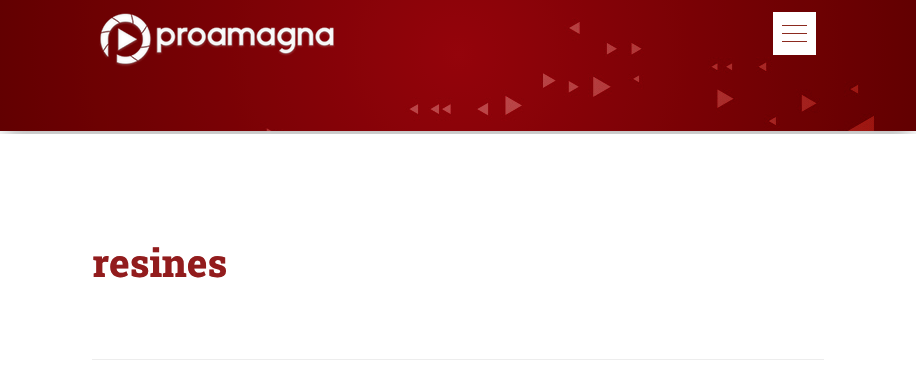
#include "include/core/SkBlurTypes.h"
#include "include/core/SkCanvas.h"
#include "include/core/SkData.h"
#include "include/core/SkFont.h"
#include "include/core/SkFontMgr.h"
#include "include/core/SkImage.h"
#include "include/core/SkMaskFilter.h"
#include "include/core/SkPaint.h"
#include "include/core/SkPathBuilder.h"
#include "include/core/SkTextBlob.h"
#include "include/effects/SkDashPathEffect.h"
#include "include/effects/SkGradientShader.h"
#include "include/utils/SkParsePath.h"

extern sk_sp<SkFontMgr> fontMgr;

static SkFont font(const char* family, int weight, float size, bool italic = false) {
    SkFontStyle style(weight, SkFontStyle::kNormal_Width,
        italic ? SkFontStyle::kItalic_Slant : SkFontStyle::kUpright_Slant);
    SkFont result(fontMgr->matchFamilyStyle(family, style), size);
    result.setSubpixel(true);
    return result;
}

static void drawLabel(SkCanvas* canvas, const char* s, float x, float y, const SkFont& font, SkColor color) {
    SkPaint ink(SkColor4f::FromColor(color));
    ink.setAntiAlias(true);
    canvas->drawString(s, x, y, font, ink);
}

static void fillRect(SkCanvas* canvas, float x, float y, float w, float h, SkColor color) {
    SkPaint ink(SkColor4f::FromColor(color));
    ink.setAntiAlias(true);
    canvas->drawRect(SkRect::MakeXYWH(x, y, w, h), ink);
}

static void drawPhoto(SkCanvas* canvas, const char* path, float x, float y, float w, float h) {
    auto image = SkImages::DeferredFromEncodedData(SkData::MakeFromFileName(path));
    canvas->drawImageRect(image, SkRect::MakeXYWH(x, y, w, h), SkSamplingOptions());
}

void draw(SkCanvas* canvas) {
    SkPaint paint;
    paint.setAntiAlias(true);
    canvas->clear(0xFFFFFFFF);
    canvas->save();
    canvas->clipRect(SkRect::MakeXYWH(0, 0, 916, 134));
    paint.setColor(0x4D000000);
    paint.setMaskFilter(SkMaskFilter::MakeBlur(kNormal_SkBlurStyle, 9));
    canvas->drawRect(SkRect::MakeXYWH(6, -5, 904, 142), paint);
    paint.setMaskFilter(nullptr);
    canvas->restore();
    drawPhoto(canvas, "assets/img1.png", 0, 0, 916, 131);
    fillRect(canvas, 773, 12, 43, 43, 0xFFFFFFFF);
    fillRect(canvas, 782, 33, 25, 1, 0xFF8C2A1F);
    fillRect(canvas, 782, 25, 25, 1, 0xFF8C2A1F);
    fillRect(canvas, 782, 41, 25, 1, 0xFF8C2A1F);
    drawPhoto(canvas, "assets/img2.png", 99, 13, 236, 54);
    SkFont font1 = font("Roboto Slab", 800, 39);
    drawLabel(canvas, "resines", 92, 277, font1, 0xFF921C1D);
    fillRect(canvas, 92, 359, 732, 1, 0xFFEDEDED);
}
